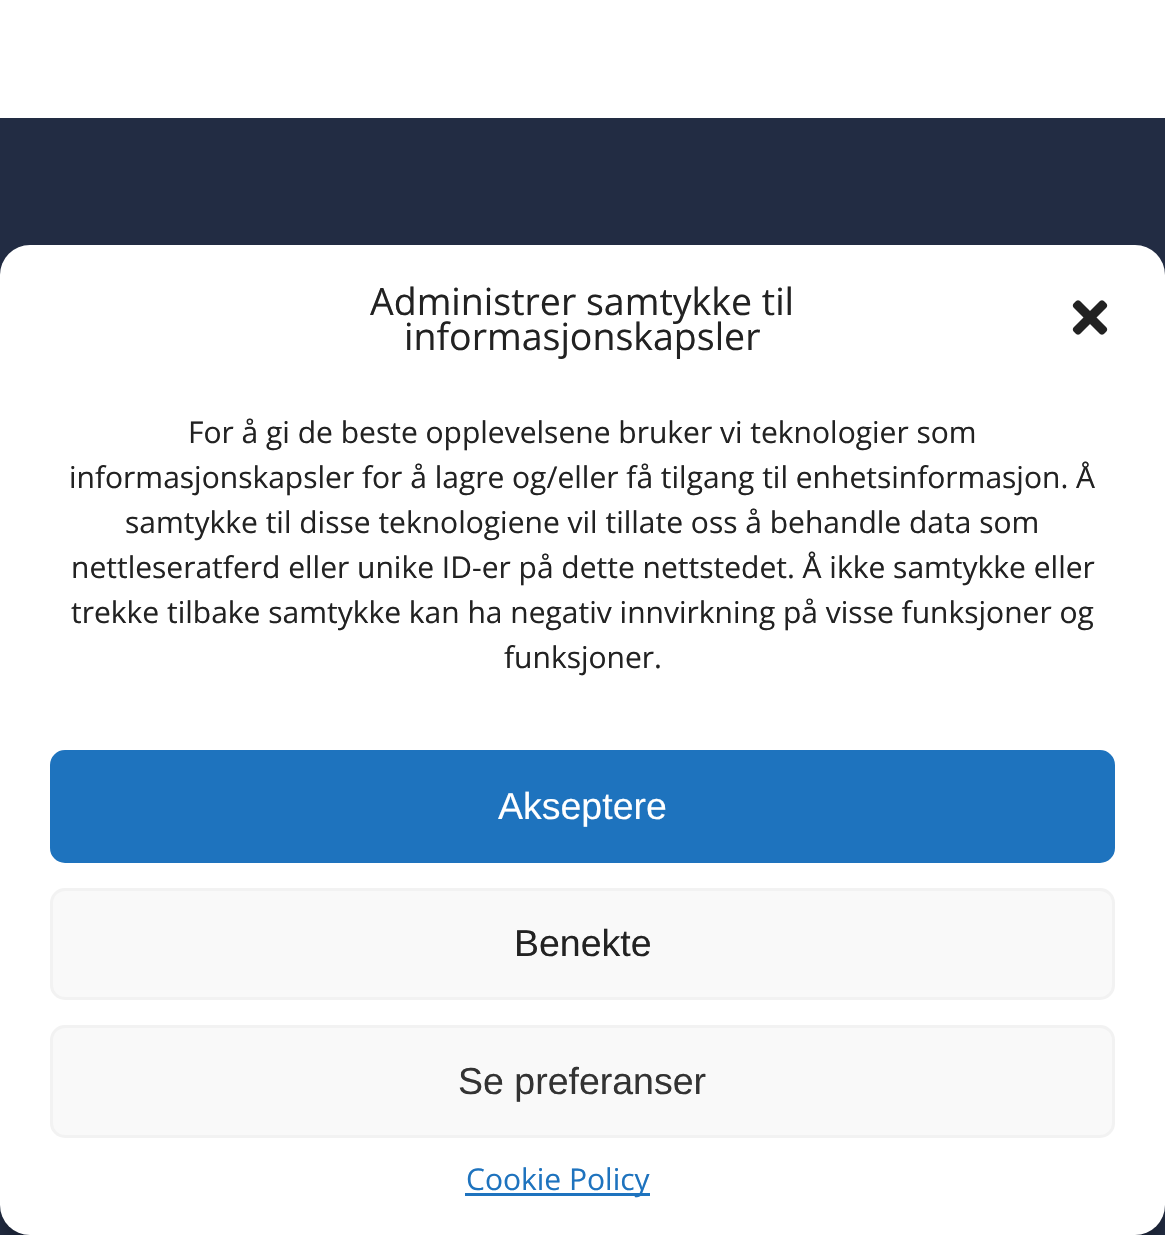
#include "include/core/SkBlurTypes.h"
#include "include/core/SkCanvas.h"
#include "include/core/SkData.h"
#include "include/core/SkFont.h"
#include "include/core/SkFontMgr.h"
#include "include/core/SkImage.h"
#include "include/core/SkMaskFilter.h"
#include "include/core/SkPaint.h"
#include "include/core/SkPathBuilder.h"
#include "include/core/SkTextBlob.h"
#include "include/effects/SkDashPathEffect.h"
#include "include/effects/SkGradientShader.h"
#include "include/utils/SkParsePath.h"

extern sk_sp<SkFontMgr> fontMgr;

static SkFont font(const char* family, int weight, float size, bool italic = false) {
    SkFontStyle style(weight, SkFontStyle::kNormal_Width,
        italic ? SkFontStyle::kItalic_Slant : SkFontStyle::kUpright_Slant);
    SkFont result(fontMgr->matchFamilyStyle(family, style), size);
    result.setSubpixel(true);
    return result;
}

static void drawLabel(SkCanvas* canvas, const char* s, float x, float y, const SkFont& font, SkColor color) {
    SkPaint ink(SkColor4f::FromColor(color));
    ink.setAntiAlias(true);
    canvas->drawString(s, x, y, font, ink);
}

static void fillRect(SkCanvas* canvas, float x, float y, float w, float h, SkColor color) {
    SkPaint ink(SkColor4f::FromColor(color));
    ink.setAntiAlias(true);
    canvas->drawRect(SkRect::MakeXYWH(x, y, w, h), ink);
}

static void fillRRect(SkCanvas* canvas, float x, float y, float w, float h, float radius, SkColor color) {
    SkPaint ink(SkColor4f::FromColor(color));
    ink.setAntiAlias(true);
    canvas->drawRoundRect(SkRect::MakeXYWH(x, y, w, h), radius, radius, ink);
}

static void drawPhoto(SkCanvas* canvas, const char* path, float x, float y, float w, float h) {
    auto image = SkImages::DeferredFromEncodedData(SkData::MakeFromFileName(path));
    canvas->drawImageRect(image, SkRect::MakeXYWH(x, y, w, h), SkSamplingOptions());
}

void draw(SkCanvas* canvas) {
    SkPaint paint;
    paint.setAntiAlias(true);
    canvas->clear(0xFFFFFFFF);
    fillRect(canvas, 0, 118, 1165, 1117, 0xFF222C43);
    paint.setColor(0x3B000000);
    paint.setMaskFilter(SkMaskFilter::MakeBlur(kNormal_SkBlurStyle, 7.5f));
    canvas->drawRoundRect(SkRect::MakeXYWH(0, 260, 1165, 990), 30, 30, paint);
    paint.setMaskFilter(nullptr);
    fillRRect(canvas, 0, 245, 1165, 990, 30, 0xFFFFFFFF);
    SkFont font1 = font("Open Sans", 400, 37.5f);
    drawLabel(canvas, "Administrer samtykke til", 370, 315, font1, 0xFF222222);
    drawLabel(canvas, "informasjonskapsler", 404, 350, font1, 0xFF222222);
    drawPhoto(canvas, "assets/img1.png", 1072, 300, 36, 35);
    SkFont font2 = font("Open Sans", 400, 30);
    drawLabel(canvas, "For å gi de beste opplevelsene bruker vi teknologier som", 188, 443, font2, 0xFF222222);
    drawLabel(canvas, "informasjonskapsler for å lagre og/eller få tilgang til enhetsinformasjon. Å", 69, 488, font2, 0xFF222222);
    drawLabel(canvas, "samtykke til disse teknologiene vil tillate oss å behandle data som", 125, 533, font2, 0xFF222222);
    drawLabel(canvas, "nettleseratferd eller unike ID-er på dette nettstedet. Å ikke samtykke eller", 71, 578, font2, 0xFF222222);
    drawLabel(canvas, "trekke tilbake samtykke kan ha negativ innvirkning på visse funksjoner og", 71, 623, font2, 0xFF222222);
    drawLabel(canvas, "funksjoner.", 504, 668, font2, 0xFF222222);
    paint.setColor(0xFF1E73BE);
    canvas->drawRoundRect(SkRect::MakeXYWH(51.5f, 751.5f, 1062, 110), 13.5f, 13.5f, paint);
    paint.setStroke(true);
    paint.setStrokeWidth(3);
    canvas->drawRoundRect(SkRect::MakeXYWH(51.5f, 751.5f, 1062, 110), 13.5f, 13.5f, paint);
    SkFont font3 = font("Liberation Sans", 400, 37.5f);
    drawLabel(canvas, "Akseptere", 498, 819, font3, 0xFFFFFFFF);
    paint.setStroke(false);
    paint.setColor(0xFFF9F9F9);
    canvas->drawRoundRect(SkRect::MakeXYWH(51.5f, 889.5f, 1062, 109), 13.5f, 13.5f, paint);
    paint.setStroke(true);
    paint.setColor(0xFFF2F2F2);
    canvas->drawRoundRect(SkRect::MakeXYWH(51.5f, 889.5f, 1062, 109), 13.5f, 13.5f, paint);
    drawLabel(canvas, "Benekte", 514, 956, font3, 0xFF222222);
    paint.setStroke(false);
    paint.setColor(0xFFF9F9F9);
    canvas->drawRoundRect(SkRect::MakeXYWH(51.5f, 1026.5f, 1062, 110), 13.5f, 13.5f, paint);
    paint.setStroke(true);
    paint.setColor(0xFFF2F2F2);
    canvas->drawRoundRect(SkRect::MakeXYWH(51.5f, 1026.5f, 1062, 110), 13.5f, 13.5f, paint);
    drawLabel(canvas, "Se preferanser", 458, 1094, font3, 0xFF333333);
    fillRect(canvas, 465, 1193, 185, 3, 0xFF1E73BE);
    drawLabel(canvas, "Cookie Policy", 466, 1190, font2, 0xFF1E73BE);
}
